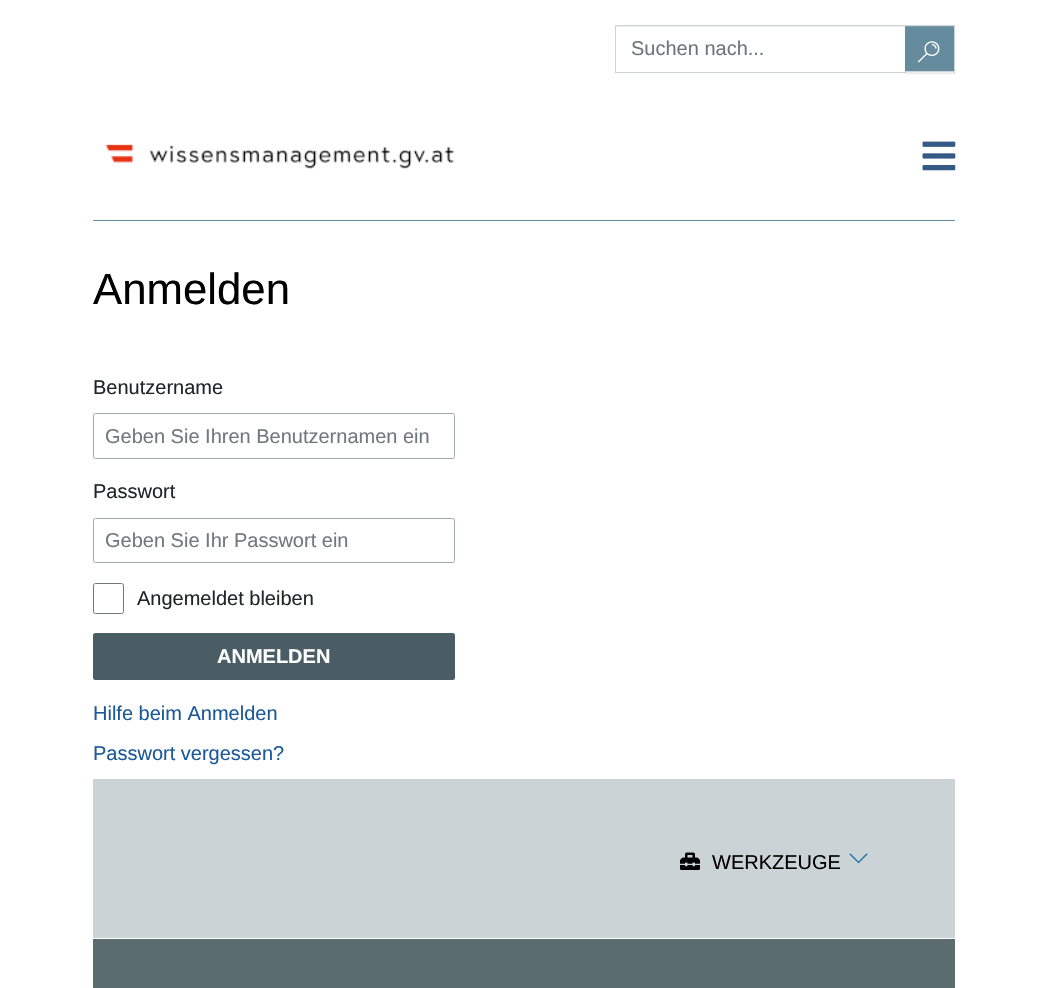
#include "include/core/SkBlurTypes.h"
#include "include/core/SkCanvas.h"
#include "include/core/SkData.h"
#include "include/core/SkFont.h"
#include "include/core/SkFontMgr.h"
#include "include/core/SkImage.h"
#include "include/core/SkMaskFilter.h"
#include "include/core/SkPaint.h"
#include "include/core/SkPathBuilder.h"
#include "include/core/SkTextBlob.h"
#include "include/effects/SkDashPathEffect.h"
#include "include/effects/SkGradientShader.h"
#include "include/utils/SkParsePath.h"

extern sk_sp<SkFontMgr> fontMgr;

static SkFont font(const char* family, int weight, float size, bool italic = false) {
    SkFontStyle style(weight, SkFontStyle::kNormal_Width,
        italic ? SkFontStyle::kItalic_Slant : SkFontStyle::kUpright_Slant);
    SkFont result(fontMgr->matchFamilyStyle(family, style), size);
    result.setSubpixel(true);
    return result;
}

static void drawLabel(SkCanvas* canvas, const char* s, float x, float y, const SkFont& font, SkColor color) {
    SkPaint ink(SkColor4f::FromColor(color));
    ink.setAntiAlias(true);
    canvas->drawString(s, x, y, font, ink);
}

static void fillRect(SkCanvas* canvas, float x, float y, float w, float h, SkColor color) {
    SkPaint ink(SkColor4f::FromColor(color));
    ink.setAntiAlias(true);
    canvas->drawRect(SkRect::MakeXYWH(x, y, w, h), ink);
}

static void fillRRect(SkCanvas* canvas, float x, float y, float w, float h, float radius, SkColor color) {
    SkPaint ink(SkColor4f::FromColor(color));
    ink.setAntiAlias(true);
    canvas->drawRoundRect(SkRect::MakeXYWH(x, y, w, h), radius, radius, ink);
}

static void drawPhoto(SkCanvas* canvas, const char* path, float x, float y, float w, float h) {
    auto image = SkImages::DeferredFromEncodedData(SkData::MakeFromFileName(path));
    canvas->drawImageRect(image, SkRect::MakeXYWH(x, y, w, h), SkSamplingOptions());
}

void draw(SkCanvas* canvas) {
    SkPaint paint;
    paint.setAntiAlias(true);
    canvas->clear(0xFFFFFFFF);
    fillRect(canvas, 616, 26, 289, 1, 0xFFECECEC);
    paint.setStroke(true);
    paint.setStrokeWidth(1);
    paint.setColor(0xFFCED4DA);
    canvas->drawRect(SkRect::MakeXYWH(615.5f, 25.5f, 290, 47), paint);
    SkFont font1 = font("Liberation Sans", 400, 20);
    drawLabel(canvas, "Suchen nach...", 631, 55, font1, 0xFF6C757D);
    paint.setStroke(false);
    paint.setColor(0x12000000);
    paint.setMaskFilter(SkMaskFilter::MakeBlur(kNormal_SkBlurStyle, 0.5f));
    canvas->drawRect(SkRect::MakeXYWH(905, 26, 50, 48), paint);
    paint.setMaskFilter(nullptr);
    fillRect(canvas, 905, 27, 49, 44, 0xFF658B9E);
    drawPhoto(canvas, "assets/img1.png", 917, 41, 23, 22);
    fillRect(canvas, 905, 26, 49, 1, 0xFF7C9CAD);
    fillRect(canvas, 905, 25, 50, 1, 0xFFCED4DA);
    fillRect(canvas, 954, 25, 1, 48, 0xFFCED4DA);
    fillRect(canvas, 905, 71, 50, 1, 0xFFCED4DA);
    fillRect(canvas, 93, 220, 862, 1, 0xFF658B9E);
    drawPhoto(canvas, "assets/img2.png", 105, 144, 349, 25);
    drawPhoto(canvas, "assets/img3.png", 922, 141, 34, 30);
    SkFont font2 = font("Liberation Sans", 400, 43.75f);
    drawLabel(canvas, "Anmelden", 93, 304, font2, 0xFF000000);
    drawLabel(canvas, "Benutzername", 93, 394, font1, 0xFF212529);
    paint.setStroke(true);
    paint.setColor(0xFFA2A9B1);
    canvas->drawRoundRect(SkRect::MakeXYWH(93.5f, 413.5f, 361, 45), 2, 2, paint);
    drawLabel(canvas, "Geben Sie Ihren Benutzernamen ein", 105, 443, font1, 0xFF72777D);
    drawLabel(canvas, "Passwort", 93, 498, font1, 0xFF212529);
    canvas->drawRoundRect(SkRect::MakeXYWH(93.5f, 518.5f, 361, 44), 2, 2, paint);
    drawLabel(canvas, "Geben Sie Ihr Passwort ein", 105, 547, font1, 0xFF72777D);
    paint.setColor(0xFF72777D);
    canvas->drawRoundRect(SkRect::MakeXYWH(93.5f, 583.5f, 30, 30), 2, 2, paint);
    drawLabel(canvas, "Angemeldet bleiben", 137, 605, font1, 0xFF212529);
    fillRRect(canvas, 93, 633, 362, 47, 2.5f, 0xFF4B5D64);
    SkFont font3 = font("Liberation Sans", 700, 20);
    drawLabel(canvas, "ANMELDEN", 217, 663, font3, 0xFFFFFFFF);
    drawLabel(canvas, "Hilfe beim Anmelden", 93, 720, font1, 0xFF1B599B);
    drawLabel(canvas, "Passwort vergessen?", 93, 760, font1, 0xFF1B599B);
    fillRect(canvas, 93, 779, 862, 159, 0xFFCBD3D7);
    drawPhoto(canvas, "assets/img4.png", 680, 852, 20, 18);
    drawLabel(canvas, "WERKZEUGE", 712, 869, font1, 0xFF000000);
    drawPhoto(canvas, "assets/img5.png", 849, 853, 19, 11);
    fillRect(canvas, 93, 939, 862, 49, 0xFF5B6C71);
}
